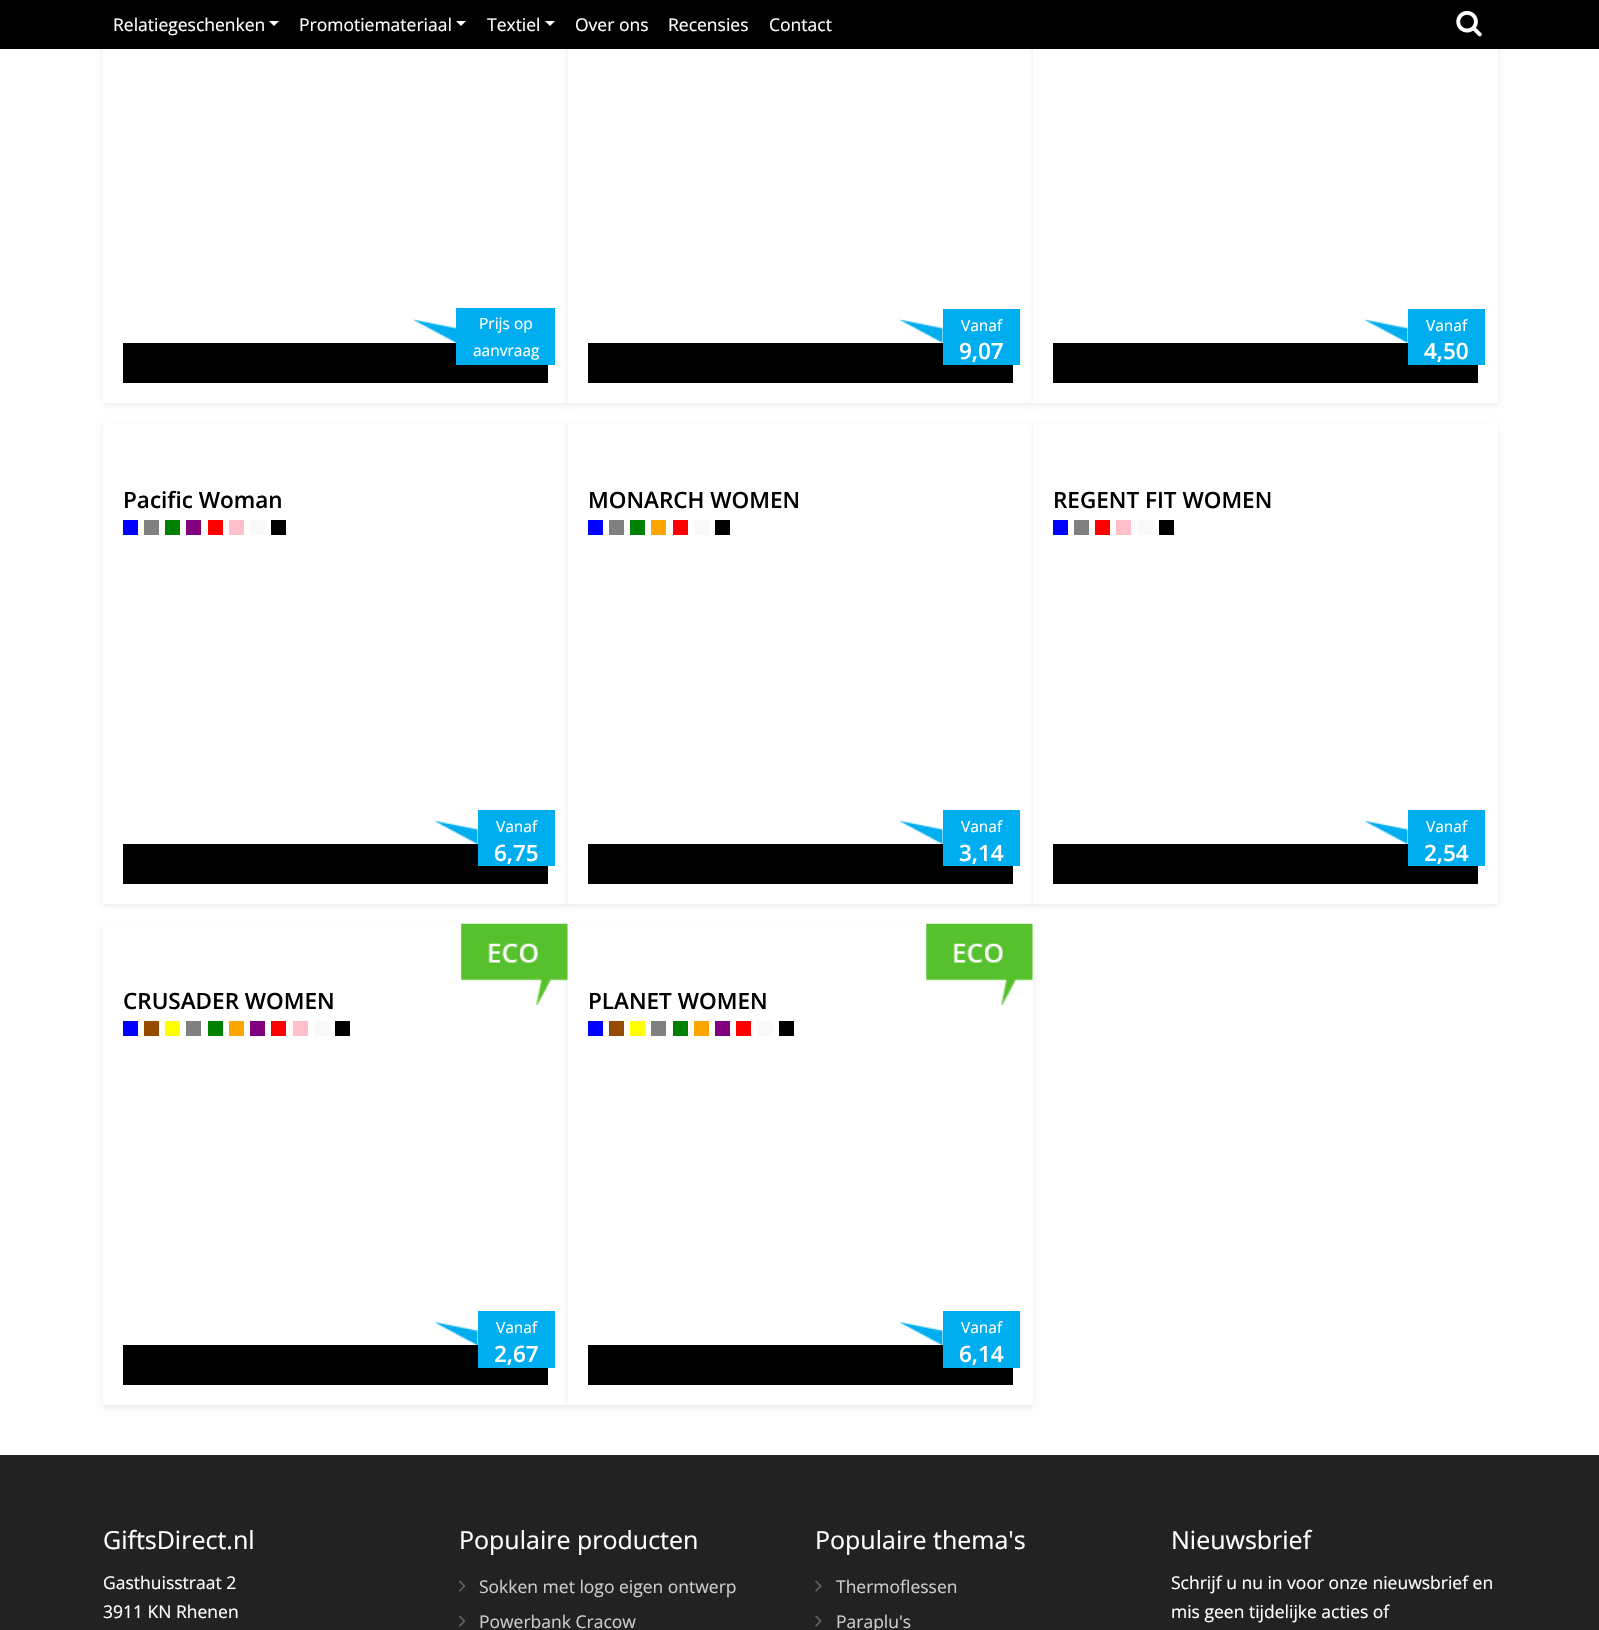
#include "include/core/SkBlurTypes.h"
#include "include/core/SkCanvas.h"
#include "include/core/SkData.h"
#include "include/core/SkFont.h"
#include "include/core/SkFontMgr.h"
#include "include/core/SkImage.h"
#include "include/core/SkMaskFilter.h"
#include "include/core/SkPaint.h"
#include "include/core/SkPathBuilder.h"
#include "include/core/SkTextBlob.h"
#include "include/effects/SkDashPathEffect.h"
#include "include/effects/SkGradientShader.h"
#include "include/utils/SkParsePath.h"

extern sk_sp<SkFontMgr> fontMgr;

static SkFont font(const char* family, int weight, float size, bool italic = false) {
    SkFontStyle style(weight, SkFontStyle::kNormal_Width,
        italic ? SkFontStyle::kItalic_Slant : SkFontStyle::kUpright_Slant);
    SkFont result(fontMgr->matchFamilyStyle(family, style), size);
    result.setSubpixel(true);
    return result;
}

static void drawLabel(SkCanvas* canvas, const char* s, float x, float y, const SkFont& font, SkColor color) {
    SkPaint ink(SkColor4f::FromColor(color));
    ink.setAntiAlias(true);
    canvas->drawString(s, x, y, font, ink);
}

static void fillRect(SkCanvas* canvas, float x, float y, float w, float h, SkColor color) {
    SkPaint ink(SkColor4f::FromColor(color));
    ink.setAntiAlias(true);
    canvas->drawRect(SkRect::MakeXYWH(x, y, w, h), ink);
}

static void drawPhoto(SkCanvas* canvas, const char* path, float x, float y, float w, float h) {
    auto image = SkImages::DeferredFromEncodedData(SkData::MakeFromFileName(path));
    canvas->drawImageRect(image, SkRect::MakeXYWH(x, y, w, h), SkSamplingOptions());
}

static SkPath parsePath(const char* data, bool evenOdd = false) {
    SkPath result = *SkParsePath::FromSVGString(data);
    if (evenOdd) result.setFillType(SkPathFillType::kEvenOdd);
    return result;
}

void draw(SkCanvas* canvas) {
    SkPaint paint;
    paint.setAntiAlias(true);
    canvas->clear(0xFFFFFFFF);
    paint.setColor(0x12000000);
    paint.setMaskFilter(SkMaskFilter::MakeBlur(kNormal_SkBlurStyle, 2.5f));
    canvas->drawRect(SkRect::MakeXYWH(103, -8, 465, 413), paint);
    paint.setMaskFilter(nullptr);
    fillRect(canvas, 103, 49, 465, 354, 0xFFFFFFFF);
    paint.setMaskFilter(SkMaskFilter::MakeBlur(kNormal_SkBlurStyle, 2.5f));
    canvas->drawRect(SkRect::MakeXYWH(568, -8, 465, 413), paint);
    paint.setMaskFilter(nullptr);
    fillRect(canvas, 568, 49, 465, 354, 0xFFFFFFFF);
    paint.setMaskFilter(SkMaskFilter::MakeBlur(kNormal_SkBlurStyle, 2.5f));
    canvas->drawRect(SkRect::MakeXYWH(1033, -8, 465, 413), paint);
    paint.setMaskFilter(nullptr);
    fillRect(canvas, 0, 0, 1599, 49, 0xFF000000);
    SkFont font1 = font("Open Sans", 400, 17.5f);
    drawLabel(canvas, "Relatiegeschenken", 113, 31, font1, 0xFFFFFFFF);
    paint.setColor(0xFFFFFFFF);
    canvas->drawPath(parsePath("M269 21H279L274 26Z"), paint);
    drawLabel(canvas, "Promotiemateriaal", 299, 31, font1, 0xFFFFFFFF);
    canvas->drawPath(parsePath("M456 21H466L461 26Z"), paint);
    drawLabel(canvas, "Textiel", 487, 31, font1, 0xFFFFFFFF);
    canvas->drawPath(parsePath("M545 21H555L550 26Z"), paint);
    drawLabel(canvas, "Over ons", 575, 31, font1, 0xFFFFFFFF);
    drawLabel(canvas, "Recensies", 668, 31, font1, 0xFFFFFFFF);
    drawLabel(canvas, "Contact", 769, 31, font1, 0xFFFFFFFF);
    drawPhoto(canvas, "assets/img1.png", 1456, 10, 26, 27);
    fillRect(canvas, 123, 343, 425, 40, 0xFF000000);
    fillRect(canvas, 456, 308, 99, 57, 0xFF00AEEF);
    drawPhoto(canvas, "assets/img2.png", 412, 318, 44, 25);
    SkFont font2 = font("Open Sans", 400, 15.5f);
    drawLabel(canvas, "Prijs op", 479, 329, font2, 0xFFFFFFFF);
    drawLabel(canvas, "aanvraag", 473, 356, font2, 0xFFFFFFFF);
    fillRect(canvas, 588, 343, 425, 40, 0xFF000000);
    fillRect(canvas, 943, 309, 77, 56, 0xFF00AEEF);
    drawPhoto(canvas, "assets/img3.png", 899, 318, 44, 25);
    drawLabel(canvas, "Vanaf", 961, 331, font2, 0xFFFFFFFF);
    SkFont font3 = font("Open Sans", 600, 22.5f);
    drawLabel(canvas, "9,07", 959, 359, font3, 0xFFFFFFFF);
    fillRect(canvas, 1033, 49, 465, 354, 0xFFFFFFFF);
    fillRect(canvas, 1053, 343, 425, 40, 0xFF000000);
    fillRect(canvas, 1408, 309, 77, 56, 0xFF00AEEF);
    drawPhoto(canvas, "assets/img3.png", 1364, 318, 44, 25);
    drawLabel(canvas, "Vanaf", 1426, 331, font2, 0xFFFFFFFF);
    drawLabel(canvas, "4,50", 1424, 359, font3, 0xFFFFFFFF);
    paint.setColor(0x12000000);
    paint.setMaskFilter(SkMaskFilter::MakeBlur(kNormal_SkBlurStyle, 2.5f));
    canvas->drawRect(SkRect::MakeXYWH(103, 425, 465, 481), paint);
    paint.setMaskFilter(nullptr);
    fillRect(canvas, 103, 423, 465, 481, 0xFFFFFFFF);
    drawLabel(canvas, "Pacific Woman", 123, 508, font3, 0xFF000000);
    fillRect(canvas, 123, 520, 15, 15, 0xFF0000FF);
    fillRect(canvas, 144, 520, 15, 15, 0xFF808080);
    fillRect(canvas, 165, 520, 15, 15, 0xFF008000);
    fillRect(canvas, 186, 520, 15, 15, 0xFF800080);
    fillRect(canvas, 208, 520, 15, 15, 0xFFFF0000);
    fillRect(canvas, 229, 520, 15, 15, 0xFFFFC0CB);
    fillRect(canvas, 250, 520, 15, 15, 0xFFF9F9F9);
    fillRect(canvas, 271, 520, 15, 15, 0xFF000000);
    fillRect(canvas, 123, 844, 425, 40, 0xFF000000);
    fillRect(canvas, 478, 810, 77, 56, 0xFF00AEEF);
    drawPhoto(canvas, "assets/img4.png", 434, 820, 44, 24);
    drawLabel(canvas, "Vanaf", 496, 832, font2, 0xFFFFFFFF);
    drawLabel(canvas, "6,75", 494, 861, font3, 0xFFFFFFFF);
    paint.setMaskFilter(SkMaskFilter::MakeBlur(kNormal_SkBlurStyle, 2.5f));
    canvas->drawRect(SkRect::MakeXYWH(568, 425, 465, 481), paint);
    paint.setMaskFilter(nullptr);
    fillRect(canvas, 568, 423, 465, 481, 0xFFFFFFFF);
    drawLabel(canvas, "MONARCH WOMEN", 588, 508, font3, 0xFF000000);
    fillRect(canvas, 588, 520, 15, 15, 0xFF0000FF);
    fillRect(canvas, 609, 520, 15, 15, 0xFF808080);
    fillRect(canvas, 630, 520, 15, 15, 0xFF008000);
    fillRect(canvas, 651, 520, 15, 15, 0xFFFFA500);
    fillRect(canvas, 673, 520, 15, 15, 0xFFFF0000);
    fillRect(canvas, 694, 520, 15, 15, 0xFFF9F9F9);
    fillRect(canvas, 715, 520, 15, 15, 0xFF000000);
    fillRect(canvas, 588, 844, 425, 40, 0xFF000000);
    fillRect(canvas, 943, 810, 77, 56, 0xFF00AEEF);
    drawPhoto(canvas, "assets/img5.png", 899, 820, 44, 24);
    drawLabel(canvas, "Vanaf", 961, 832, font2, 0xFFFFFFFF);
    drawLabel(canvas, "3,14", 959, 861, font3, 0xFFFFFFFF);
    paint.setMaskFilter(SkMaskFilter::MakeBlur(kNormal_SkBlurStyle, 2.5f));
    canvas->drawRect(SkRect::MakeXYWH(1033, 425, 465, 481), paint);
    paint.setMaskFilter(nullptr);
    fillRect(canvas, 1033, 423, 465, 481, 0xFFFFFFFF);
    drawLabel(canvas, "REGENT FIT WOMEN", 1053, 508, font3, 0xFF000000);
    fillRect(canvas, 1053, 520, 15, 15, 0xFF0000FF);
    fillRect(canvas, 1074, 520, 15, 15, 0xFF808080);
    fillRect(canvas, 1095, 520, 15, 15, 0xFFFF0000);
    fillRect(canvas, 1116, 520, 15, 15, 0xFFFFC0CB);
    fillRect(canvas, 1138, 520, 15, 15, 0xFFF9F9F9);
    fillRect(canvas, 1159, 520, 15, 15, 0xFF000000);
    fillRect(canvas, 1053, 844, 425, 40, 0xFF000000);
    fillRect(canvas, 1408, 810, 77, 56, 0xFF00AEEF);
    drawPhoto(canvas, "assets/img5.png", 1364, 820, 44, 24);
    drawLabel(canvas, "Vanaf", 1426, 832, font2, 0xFFFFFFFF);
    drawLabel(canvas, "2,54", 1424, 861, font3, 0xFFFFFFFF);
    paint.setMaskFilter(SkMaskFilter::MakeBlur(kNormal_SkBlurStyle, 2.5f));
    canvas->drawRect(SkRect::MakeXYWH(103, 926, 465, 482), paint);
    paint.setMaskFilter(nullptr);
    fillRect(canvas, 103, 924, 465, 481, 0xFFFFFFFF);
    drawLabel(canvas, "CRUSADER WOMEN", 123, 1009, font3, 0xFF000000);
    fillRect(canvas, 123, 1021, 15, 15, 0xFF0000FF);
    fillRect(canvas, 144, 1021, 15, 15, 0xFF964B00);
    fillRect(canvas, 165, 1021, 15, 15, 0xFFFFFF00);
    fillRect(canvas, 186, 1021, 15, 15, 0xFF808080);
    fillRect(canvas, 208, 1021, 15, 15, 0xFF008000);
    fillRect(canvas, 229, 1021, 15, 15, 0xFFFFA500);
    fillRect(canvas, 250, 1021, 15, 15, 0xFF800080);
    fillRect(canvas, 271, 1021, 15, 15, 0xFFFF0000);
    fillRect(canvas, 293, 1021, 15, 15, 0xFFFFC0CB);
    fillRect(canvas, 314, 1021, 15, 15, 0xFFF9F9F9);
    fillRect(canvas, 335, 1021, 15, 15, 0xFF000000);
    paint.setMaskFilter(SkMaskFilter::MakeBlur(kNormal_SkBlurStyle, 2.5f));
    canvas->drawRect(SkRect::MakeXYWH(568, 926, 465, 482), paint);
    paint.setMaskFilter(nullptr);
    drawPhoto(canvas, "assets/img6.png", 461, 923, 107, 82);
    fillRect(canvas, 123, 1345, 425, 40, 0xFF000000);
    fillRect(canvas, 478, 1311, 77, 57, 0xFF00AEEF);
    drawPhoto(canvas, "assets/img7.png", 434, 1321, 44, 24);
    drawLabel(canvas, "Vanaf", 496, 1333, font2, 0xFFFFFFFF);
    drawLabel(canvas, "2,67", 494, 1362, font3, 0xFFFFFFFF);
    fillRect(canvas, 568, 924, 465, 481, 0xFFFFFFFF);
    drawLabel(canvas, "PLANET WOMEN", 588, 1009, font3, 0xFF000000);
    fillRect(canvas, 588, 1021, 15, 15, 0xFF0000FF);
    fillRect(canvas, 609, 1021, 15, 15, 0xFF964B00);
    fillRect(canvas, 630, 1021, 15, 15, 0xFFFFFF00);
    fillRect(canvas, 651, 1021, 15, 15, 0xFF808080);
    fillRect(canvas, 673, 1021, 15, 15, 0xFF008000);
    fillRect(canvas, 694, 1021, 15, 15, 0xFFFFA500);
    fillRect(canvas, 715, 1021, 15, 15, 0xFF800080);
    fillRect(canvas, 736, 1021, 15, 15, 0xFFFF0000);
    fillRect(canvas, 758, 1021, 15, 15, 0xFFF9F9F9);
    fillRect(canvas, 779, 1021, 15, 15, 0xFF000000);
    drawPhoto(canvas, "assets/img8.png", 926, 923, 107, 82);
    fillRect(canvas, 588, 1345, 425, 40, 0xFF000000);
    fillRect(canvas, 943, 1311, 77, 57, 0xFF00AEEF);
    drawPhoto(canvas, "assets/img9.png", 899, 1321, 44, 24);
    drawLabel(canvas, "Vanaf", 961, 1333, font2, 0xFFFFFFFF);
    drawLabel(canvas, "6,14", 959, 1362, font3, 0xFFFFFFFF);
    fillRect(canvas, 0, 1455, 1599, 175, 0xFF222222);
    SkFont font4 = font("Open Sans", 400, 25);
    drawLabel(canvas, "GiftsDirect.nl", 103, 1549, font4, 0xFFFFFFFF);
    drawLabel(canvas, "Gasthuisstraat 2", 103, 1589, font1, 0xFFFFFFFF);
    drawLabel(canvas, "3911 KN Rhenen", 103, 1618, font1, 0xFFFFFFFF);
    drawLabel(canvas, "Populaire producten", 459, 1549, font4, 0xFFFFFFFF);
    drawPhoto(canvas, "assets/img10.png", 459, 1580, 7, 12);
    drawLabel(canvas, "Sokken met logo eigen ontwerp", 479, 1593, font1, 0xFFCCCCCC);
    drawPhoto(canvas, "assets/img10.png", 459, 1615, 7, 12);
    drawLabel(canvas, "Powerbank Cracow", 479, 1628, font1, 0xFFCCCCCC);
    drawLabel(canvas, "Populaire thema's", 815, 1549, font4, 0xFFFFFFFF);
    drawPhoto(canvas, "assets/img11.png", 815, 1580, 7, 12);
    drawLabel(canvas, "Thermoflessen", 836, 1593, font1, 0xFFCCCCCC);
    drawPhoto(canvas, "assets/img11.png", 815, 1615, 7, 12);
    drawLabel(canvas, "Paraplu's", 836, 1628, font1, 0xFFCCCCCC);
    drawLabel(canvas, "Nieuwsbrief", 1171, 1549, font4, 0xFFFFFFFF);
    drawLabel(canvas, "Schrijf u nu in voor onze nieuwsbrief en", 1171, 1589, font1, 0xFFFFFFFF);
    drawLabel(canvas, "mis geen tijdelijke acties of", 1171, 1618, font1, 0xFFFFFFFF);
}
